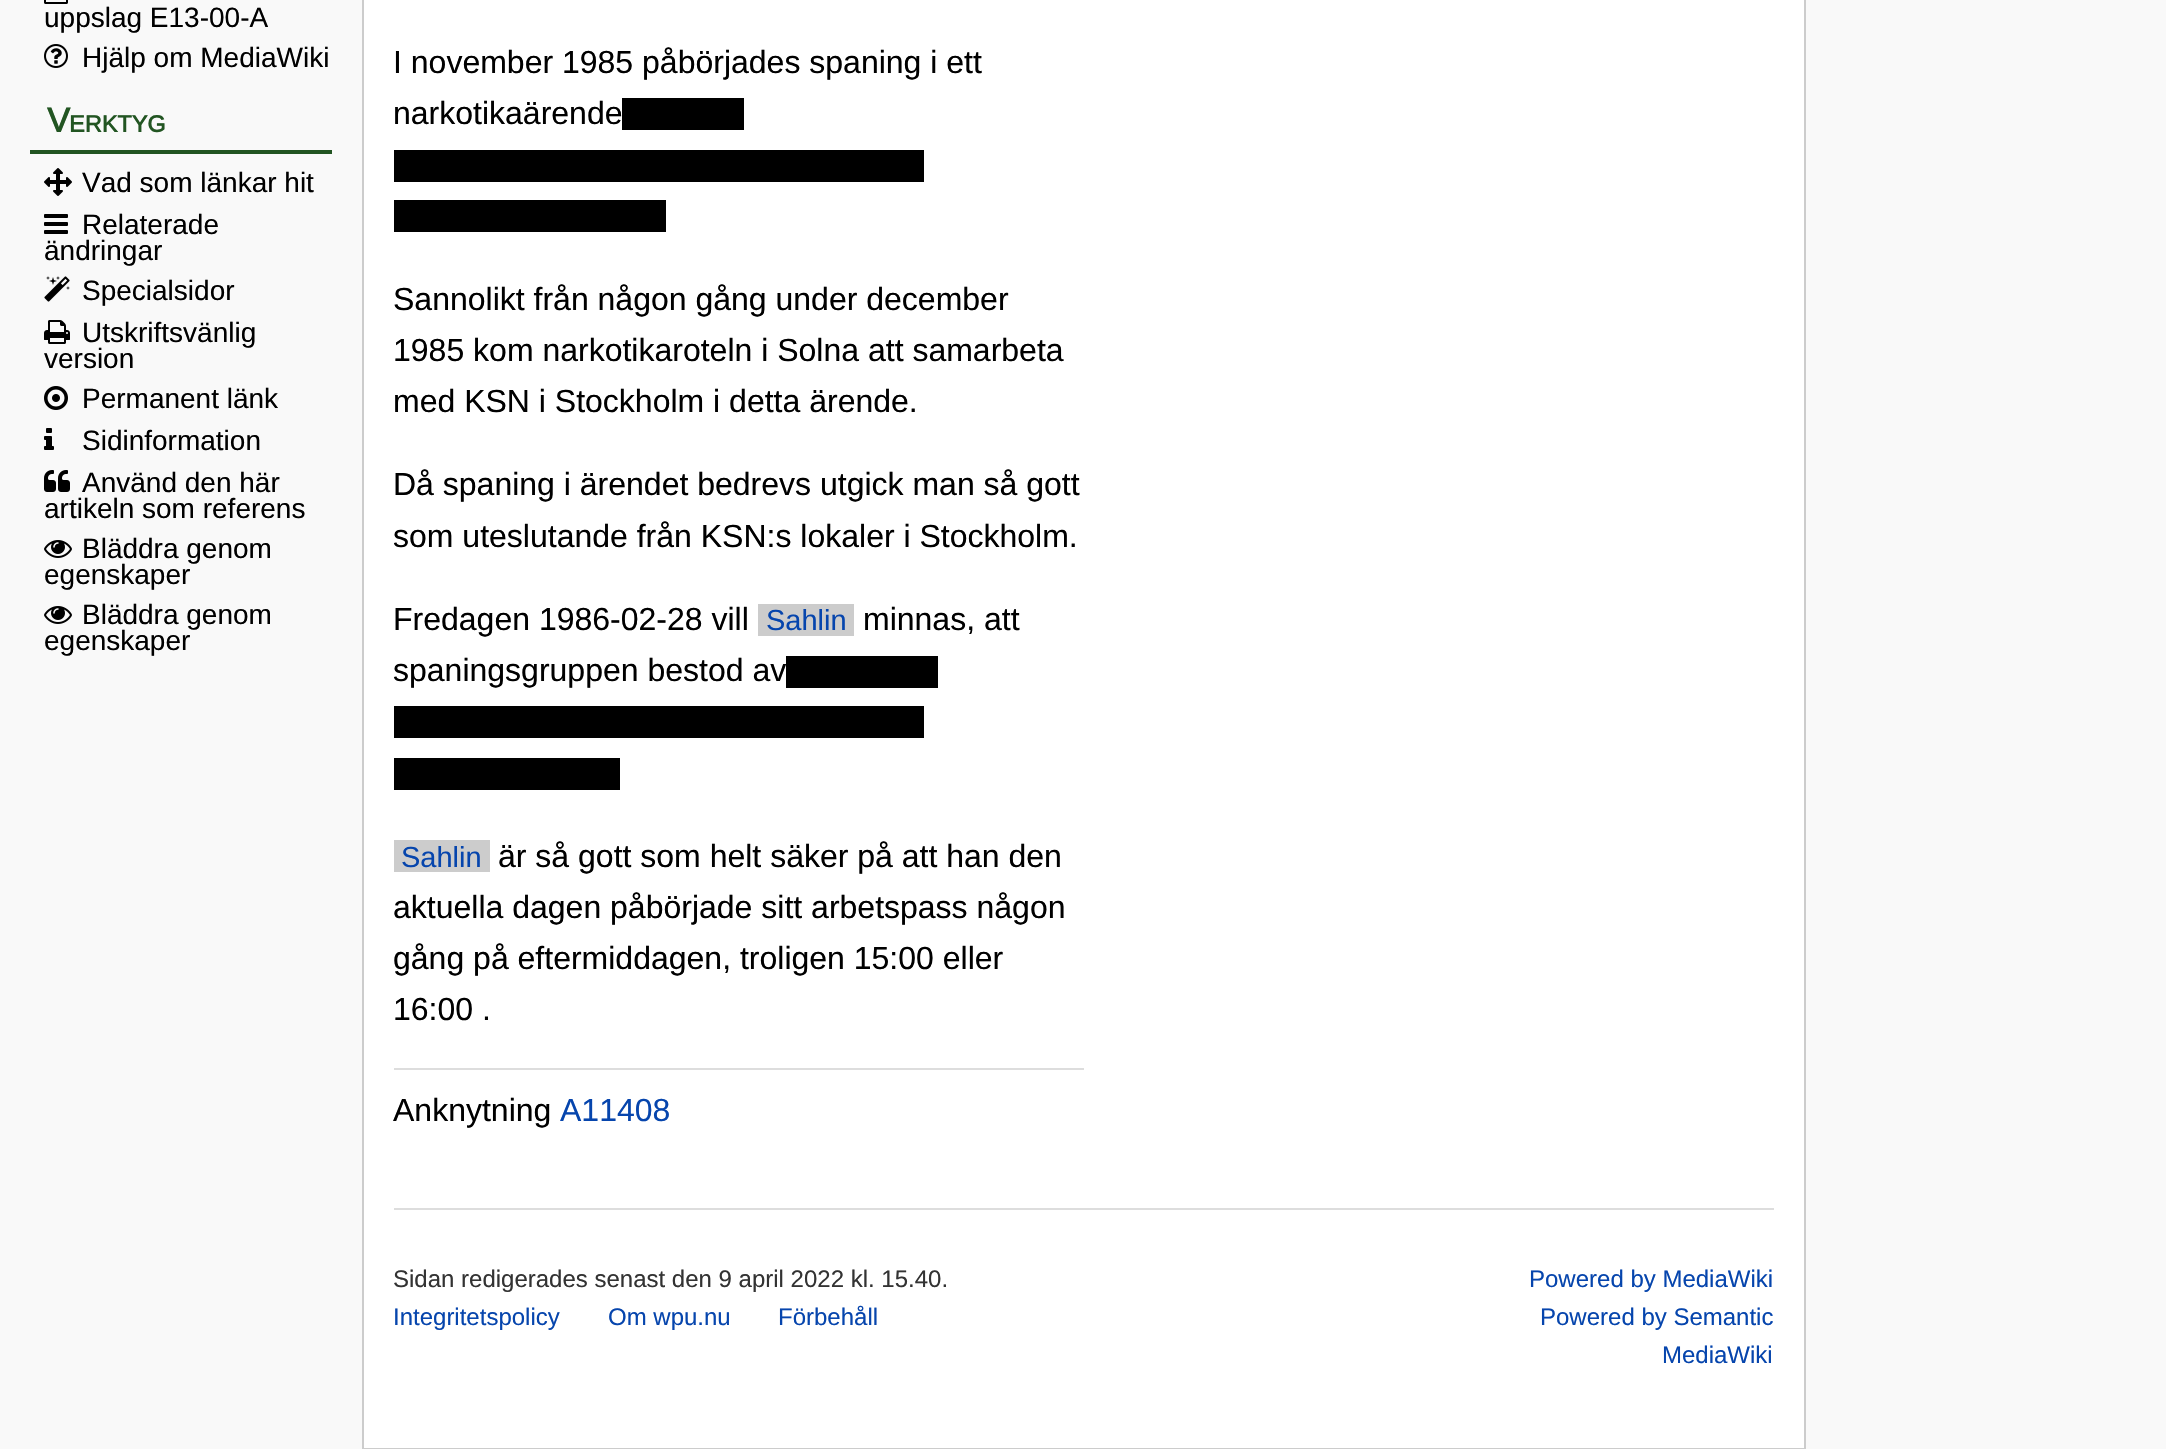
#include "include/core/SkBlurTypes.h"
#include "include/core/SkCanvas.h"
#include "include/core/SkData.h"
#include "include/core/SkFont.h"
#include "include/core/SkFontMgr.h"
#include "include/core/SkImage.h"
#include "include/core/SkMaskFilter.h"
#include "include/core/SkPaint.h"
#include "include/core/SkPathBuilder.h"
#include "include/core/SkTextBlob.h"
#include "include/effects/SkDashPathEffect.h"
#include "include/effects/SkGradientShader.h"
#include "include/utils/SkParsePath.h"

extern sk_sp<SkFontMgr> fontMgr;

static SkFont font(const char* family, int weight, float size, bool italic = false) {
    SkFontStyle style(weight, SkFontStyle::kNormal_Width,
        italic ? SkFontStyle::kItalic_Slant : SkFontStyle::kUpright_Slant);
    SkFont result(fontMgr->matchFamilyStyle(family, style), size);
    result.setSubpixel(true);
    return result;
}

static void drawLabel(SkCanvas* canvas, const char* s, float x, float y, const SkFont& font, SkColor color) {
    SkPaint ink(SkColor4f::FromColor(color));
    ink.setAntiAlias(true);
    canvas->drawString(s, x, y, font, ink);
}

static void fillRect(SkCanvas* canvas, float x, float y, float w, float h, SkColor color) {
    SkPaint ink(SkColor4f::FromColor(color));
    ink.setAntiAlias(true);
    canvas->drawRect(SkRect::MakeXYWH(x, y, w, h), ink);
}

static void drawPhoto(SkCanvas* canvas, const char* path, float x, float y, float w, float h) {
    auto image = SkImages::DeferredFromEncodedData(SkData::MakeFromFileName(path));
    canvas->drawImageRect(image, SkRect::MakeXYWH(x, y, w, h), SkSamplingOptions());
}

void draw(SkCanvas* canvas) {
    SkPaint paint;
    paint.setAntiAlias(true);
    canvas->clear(0xFFF9F9F9);
    drawPhoto(canvas, "assets/img1.png", 44, 0, 24, 4);
    SkFont font1 = font("Arimo", 400, 28);
    drawLabel(canvas, "uppslag E13-00-A", 44, 27, font1, 0xFF000000);
    drawPhoto(canvas, "assets/img2.png", 44, 44, 24, 24);
    drawLabel(canvas, "Hjälp om MediaWiki", 82, 67, font1, 0xFF000000);
    fillRect(canvas, 30, 150, 302, 4, 0xFF225522);
    SkFont font2 = font("Arimo", 700, 34);
    drawLabel(canvas, "V", 47, 132, font2, 0xFF225522);
    SkFont font3 = font("Arimo", 700, 23.5f);
    drawLabel(canvas, "ERKTYG", 69, 132, font3, 0xFF225522);
    drawPhoto(canvas, "assets/img3.png", 44, 168, 28, 28);
    drawLabel(canvas, "Vad som länkar hit", 82, 192, font1, 0xFF000000);
    drawPhoto(canvas, "assets/img4.png", 44, 214, 24, 20);
    drawLabel(canvas, "Relaterade", 82, 234, font1, 0xFF000000);
    drawLabel(canvas, "ändringar", 44, 260, font1, 0xFF000000);
    drawPhoto(canvas, "assets/img5.png", 44, 276, 26, 26);
    drawLabel(canvas, "Specialsidor", 82, 300, font1, 0xFF000000);
    drawPhoto(canvas, "assets/img6.png", 44, 320, 26, 24);
    drawLabel(canvas, "Utskriftsvänlig", 82, 342, font1, 0xFF000000);
    drawLabel(canvas, "version", 44, 368, font1, 0xFF000000);
    drawPhoto(canvas, "assets/img7.png", 44, 386, 24, 24);
    drawLabel(canvas, "Permanent länk", 82, 408, font1, 0xFF000000);
    drawPhoto(canvas, "assets/img8.png", 44, 428, 10, 22);
    drawLabel(canvas, "Sidinformation", 82, 450, font1, 0xFF000000);
    drawPhoto(canvas, "assets/img9.png", 44, 470, 26, 22);
    drawLabel(canvas, "Använd den här", 82, 492, font1, 0xFF000000);
    drawLabel(canvas, "artikeln som referens", 44, 518, font1, 0xFF000000);
    drawPhoto(canvas, "assets/img10.png", 44, 540, 28, 18);
    drawLabel(canvas, "Bläddra genom", 82, 558, font1, 0xFF000000);
    drawLabel(canvas, "egenskaper", 44, 584, font1, 0xFF000000);
    drawPhoto(canvas, "assets/img10.png", 44, 606, 28, 18);
    drawLabel(canvas, "Bläddra genom", 82, 624, font1, 0xFF000000);
    drawLabel(canvas, "egenskaper", 44, 650, font1, 0xFF000000);
    paint.setColor(0xFFFFFFFF);
    canvas->drawRect(SkRect::MakeXYWH(363, -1, 1442, 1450), paint);
    paint.setStroke(true);
    paint.setStrokeWidth(2);
    paint.setColor(0xFFCCCCCC);
    canvas->drawRect(SkRect::MakeXYWH(363, -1, 1442, 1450), paint);
    SkFont font4 = font("Arimo", 400, 32);
    drawLabel(canvas, "I november 1985 påbörjades spaning i ett", 393, 73, font4, 0xFF000000);
    drawLabel(canvas, "narkotikaärende", 393, 124, font4, 0xFF000000);
    fillRect(canvas, 622, 98, 122, 32, 0xFF000000);
    fillRect(canvas, 394, 150, 530, 32, 0xFF000000);
    fillRect(canvas, 394, 200, 272, 32, 0xFF000000);
    drawLabel(canvas, "Sannolikt från någon gång under december", 393, 310, font4, 0xFF000000);
    drawLabel(canvas, "1985 kom narkotikaroteln i Solna att samarbeta", 393, 361, font4, 0xFF000000);
    drawLabel(canvas, "med KSN i Stockholm i detta ärende.", 393, 412, font4, 0xFF000000);
    drawLabel(canvas, "Då spaning i ärendet bedrevs utgick man så gott", 393, 495, font4, 0xFF000000);
    drawLabel(canvas, "som uteslutande från KSN:s lokaler i Stockholm.", 393, 547, font4, 0xFF000000);
    drawLabel(canvas, "Fredagen 1986-02-28 vill", 393, 630, font4, 0xFF000000);
    fillRect(canvas, 758, 604, 96, 32, 0xFFCCCCCC);
    SkFont font5 = font("Arimo", 400, 29);
    drawLabel(canvas, "Sahlin", 766, 630, font5, 0xFF0645AD);
    drawLabel(canvas, "minnas, att", 863, 630, font4, 0xFF000000);
    drawLabel(canvas, "spaningsgruppen bestod av", 393, 681, font4, 0xFF000000);
    fillRect(canvas, 786, 656, 152, 32, 0xFF000000);
    fillRect(canvas, 394, 706, 530, 32, 0xFF000000);
    fillRect(canvas, 394, 758, 226, 32, 0xFF000000);
    fillRect(canvas, 394, 840, 96, 32, 0xFFCCCCCC);
    drawLabel(canvas, "Sahlin", 401, 867, font5, 0xFF0645AD);
    drawLabel(canvas, "är så gott som helt säker på att han den", 498, 867, font4, 0xFF000000);
    drawLabel(canvas, "aktuella dagen påbörjade sitt arbetspass någon", 393, 918, font4, 0xFF000000);
    drawLabel(canvas, "gång på eftermiddagen, troligen 15:00 eller", 393, 969, font4, 0xFF000000);
    drawLabel(canvas, "16:00 .", 393, 1020, font4, 0xFF000000);
    fillRect(canvas, 394, 1068, 690, 2, 0xFFDDDDDD);
    drawLabel(canvas, "Anknytning", 393, 1121, font4, 0xFF000000);
    drawLabel(canvas, "A11408", 560, 1121, font4, 0xFF0645AD);
    fillRect(canvas, 394, 1208, 1380, 2, 0xFFDDDDDD);
    SkFont font6 = font("Arimo", 400, 24);
    drawLabel(canvas, "Sidan redigerades senast den 9 april 2022 kl. 15.40.", 393, 1287, font6, 0xFF333333);
    drawLabel(canvas, "Integritetspolicy", 393, 1325, font6, 0xFF0645AD);
    drawLabel(canvas, "Om wpu.nu", 608, 1325, font6, 0xFF0645AD);
    drawLabel(canvas, "Förbehåll", 778, 1325, font6, 0xFF0645AD);
    drawLabel(canvas, "Powered by MediaWiki", 1529, 1287, font6, 0xFF0645AD);
    drawLabel(canvas, "Powered by Semantic", 1540, 1325, font6, 0xFF0645AD);
    drawLabel(canvas, "MediaWiki", 1662, 1363, font6, 0xFF0645AD);
}
